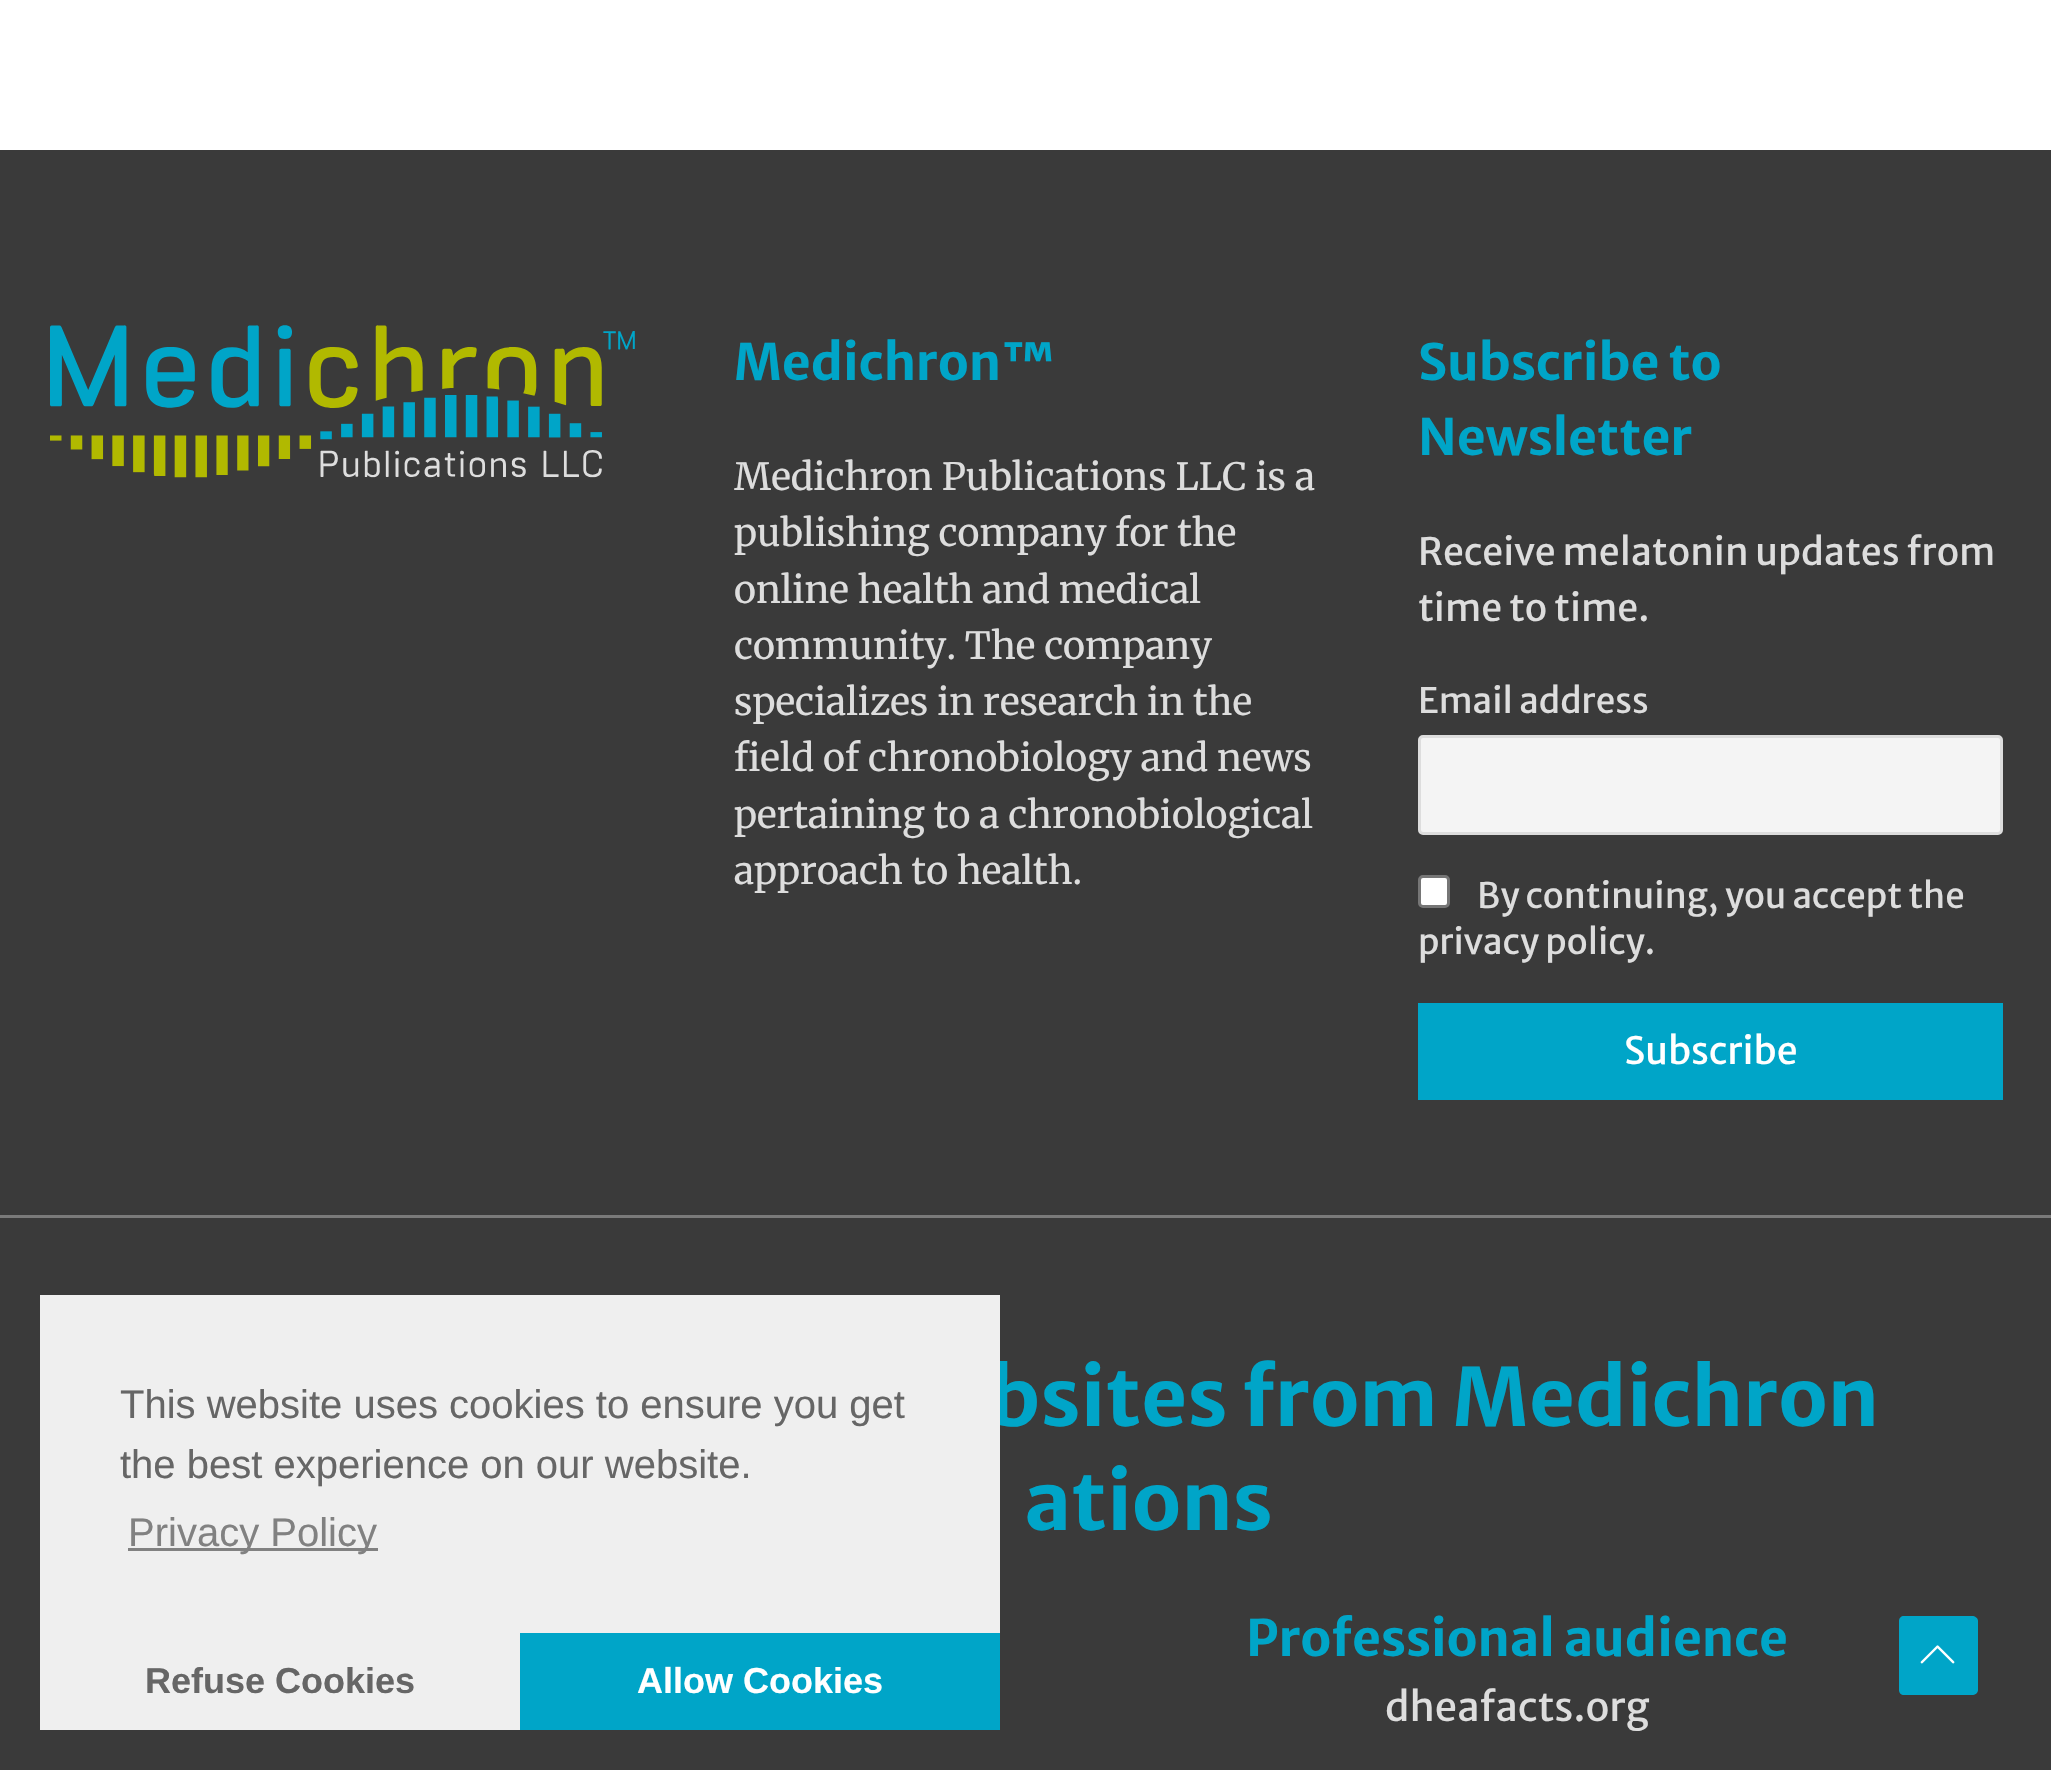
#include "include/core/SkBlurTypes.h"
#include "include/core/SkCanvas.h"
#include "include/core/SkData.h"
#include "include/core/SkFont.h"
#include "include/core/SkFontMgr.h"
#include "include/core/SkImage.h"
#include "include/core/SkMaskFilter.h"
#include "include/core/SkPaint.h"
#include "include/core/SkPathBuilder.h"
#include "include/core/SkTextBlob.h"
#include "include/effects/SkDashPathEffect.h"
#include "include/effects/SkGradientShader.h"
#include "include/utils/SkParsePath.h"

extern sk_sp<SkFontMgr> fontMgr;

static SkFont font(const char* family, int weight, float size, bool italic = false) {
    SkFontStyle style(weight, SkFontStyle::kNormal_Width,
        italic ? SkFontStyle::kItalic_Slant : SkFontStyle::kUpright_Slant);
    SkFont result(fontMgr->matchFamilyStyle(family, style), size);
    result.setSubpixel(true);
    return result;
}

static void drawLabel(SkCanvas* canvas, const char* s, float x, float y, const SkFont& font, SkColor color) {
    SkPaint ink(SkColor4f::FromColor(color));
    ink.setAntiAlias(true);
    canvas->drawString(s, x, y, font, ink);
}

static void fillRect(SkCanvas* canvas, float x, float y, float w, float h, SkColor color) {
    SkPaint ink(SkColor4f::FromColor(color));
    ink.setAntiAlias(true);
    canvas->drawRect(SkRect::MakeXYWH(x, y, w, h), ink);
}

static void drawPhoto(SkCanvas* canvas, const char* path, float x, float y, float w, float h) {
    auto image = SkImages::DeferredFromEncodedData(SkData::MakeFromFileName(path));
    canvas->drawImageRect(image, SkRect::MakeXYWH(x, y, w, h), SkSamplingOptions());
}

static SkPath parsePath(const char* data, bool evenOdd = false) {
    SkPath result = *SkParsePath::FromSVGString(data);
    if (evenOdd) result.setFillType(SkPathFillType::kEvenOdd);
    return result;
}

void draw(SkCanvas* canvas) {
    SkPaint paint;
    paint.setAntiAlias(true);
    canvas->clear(0xFFFFFFFF);
    fillRect(canvas, 0, 1218, 2051, 552, 0xFF3A3A3A);
    SkFont font1 = font("Merriweather Sans", 700, 80);
    drawLabel(canvas, "bsites from Medichron", 989, 1426, font1, 0xFF00A5C8);
    fillRect(canvas, 40, 1295, 960, 435, 0xFFEFEFEF);
    SkFont font2 = font("Liberation Sans", 400, 40);
    drawLabel(canvas, "This website uses cookies to ensure you get", 120, 1418, font2, 0xFF666666);
    drawLabel(canvas, "the best experience on our website.", 120, 1478, font2, 0xFF666666);
    fillRect(canvas, 128, 1548, 250, 3, 0xFF818181);
    drawLabel(canvas, "Privacy Policy", 128, 1546, font2, 0xFF818181);
    SkFont font3 = font("Liberation Sans", 700, 36);
    drawLabel(canvas, "Refuse Cookies", 145, 1693, font3, 0xFF666666);
    fillRect(canvas, 520, 1633, 480, 97, 0xFF00A5C8);
    drawLabel(canvas, "Allow Cookies", 637, 1693, font3, 0xFFFFFFFF);
    fillRect(canvas, 0, 150, 2051, 1065, 0xFF3A3A3A);
    drawPhoto(canvas, "assets/img1.png", 50, 325, 585, 153);
    SkFont font4 = font("Merriweather Sans", 700, 50);
    drawLabel(canvas, "Medichron™", 734, 380, font4, 0xFF00A5C8);
    SkFont font5 = font("Merriweather", 400, 37.5f);
    drawLabel(canvas, "Medichron Publications LLC is a", 734, 490, font5, 0xFFDDDDDD);
    drawLabel(canvas, "publishing company for the", 734, 546, font5, 0xFFDDDDDD);
    drawLabel(canvas, "online health and medical", 734, 603, font5, 0xFFDDDDDD);
    drawLabel(canvas, "community. The company", 734, 659, font5, 0xFFDDDDDD);
    drawLabel(canvas, "specializes in research in the", 734, 715, font5, 0xFFDDDDDD);
    drawLabel(canvas, "field of chronobiology and news", 734, 771, font5, 0xFFDDDDDD);
    drawLabel(canvas, "pertaining to a chronobiological", 734, 828, font5, 0xFFDDDDDD);
    drawLabel(canvas, "approach to health.", 734, 884, font5, 0xFFDDDDDD);
    drawLabel(canvas, "Subscribe to", 1418, 380, font4, 0xFF00A5C8);
    drawLabel(canvas, "Newsletter", 1418, 455, font4, 0xFF00A5C8);
    SkFont font6 = font("Merriweather Sans", 400, 37.5f);
    drawLabel(canvas, "Receive melatonin updates from", 1418, 565, font6, 0xFFDDDDDD);
    drawLabel(canvas, "time to time.", 1418, 621, font6, 0xFFDDDDDD);
    SkFont font7 = font("Merriweather Sans", 400, 35);
    drawLabel(canvas, "Email address", 1418, 713, font7, 0xFFDDDDDD);
    paint.setColor(0xFFF4F4F4);
    canvas->drawRoundRect(SkRect::MakeXYWH(1419.5f, 736.5f, 582, 97), 3.5f, 3.5f, paint);
    paint.setStroke(true);
    paint.setStrokeWidth(3);
    paint.setColor(0xFFDDDDDD);
    canvas->drawRoundRect(SkRect::MakeXYWH(1419.5f, 736.5f, 582, 97), 3.5f, 3.5f, paint);
    paint.setStroke(false);
    paint.setColor(0xFFFFFFFF);
    canvas->drawRoundRect(SkRect::MakeXYWH(1419.5f, 876.5f, 29, 30), 3.5f, 3.5f, paint);
    paint.setStroke(true);
    paint.setColor(0xFF767676);
    canvas->drawRoundRect(SkRect::MakeXYWH(1419.5f, 876.5f, 29, 30), 3.5f, 3.5f, paint);
    drawLabel(canvas, "By continuing, you accept the", 1477, 908, font7, 0xFFDDDDDD);
    drawLabel(canvas, "privacy policy.", 1418, 954, font7, 0xFFDDDDDD);
    fillRect(canvas, 1418, 1003, 585, 97, 0xFF00A5C8);
    drawLabel(canvas, "Subscribe", 1624, 1064, font6, 0xFFFFFFFF);
    fillRect(canvas, 0, 1215, 2051, 3, 0xFF7A7A7A);
    drawLabel(canvas, "ations", 1024, 1530, font1, 0xFF00A5C8);
    drawLabel(canvas, "Professional audience", 1246, 1656, font4, 0xFF00A5C8);
    SkFont font8 = font("Merriweather Sans", 400, 40);
    drawLabel(canvas, "dheafacts.org", 1385, 1721, font8, 0xFFDDDDDD);
    paint.setStroke(false);
    paint.setColor(0xFF00A5C8);
    canvas->drawPath(parsePath("M1972 1695H1904C1901 1695 1899 1693 1899 1690V1621C1899 1618 1901 1616 1904 1616H1972C1975 1616 1978 1618 1978 1621V1690C1978 1693 1975 1695 1972 1695Z"), paint);
    drawPhoto(canvas, "assets/img2.png", 1920, 1645, 35, 19);
}
